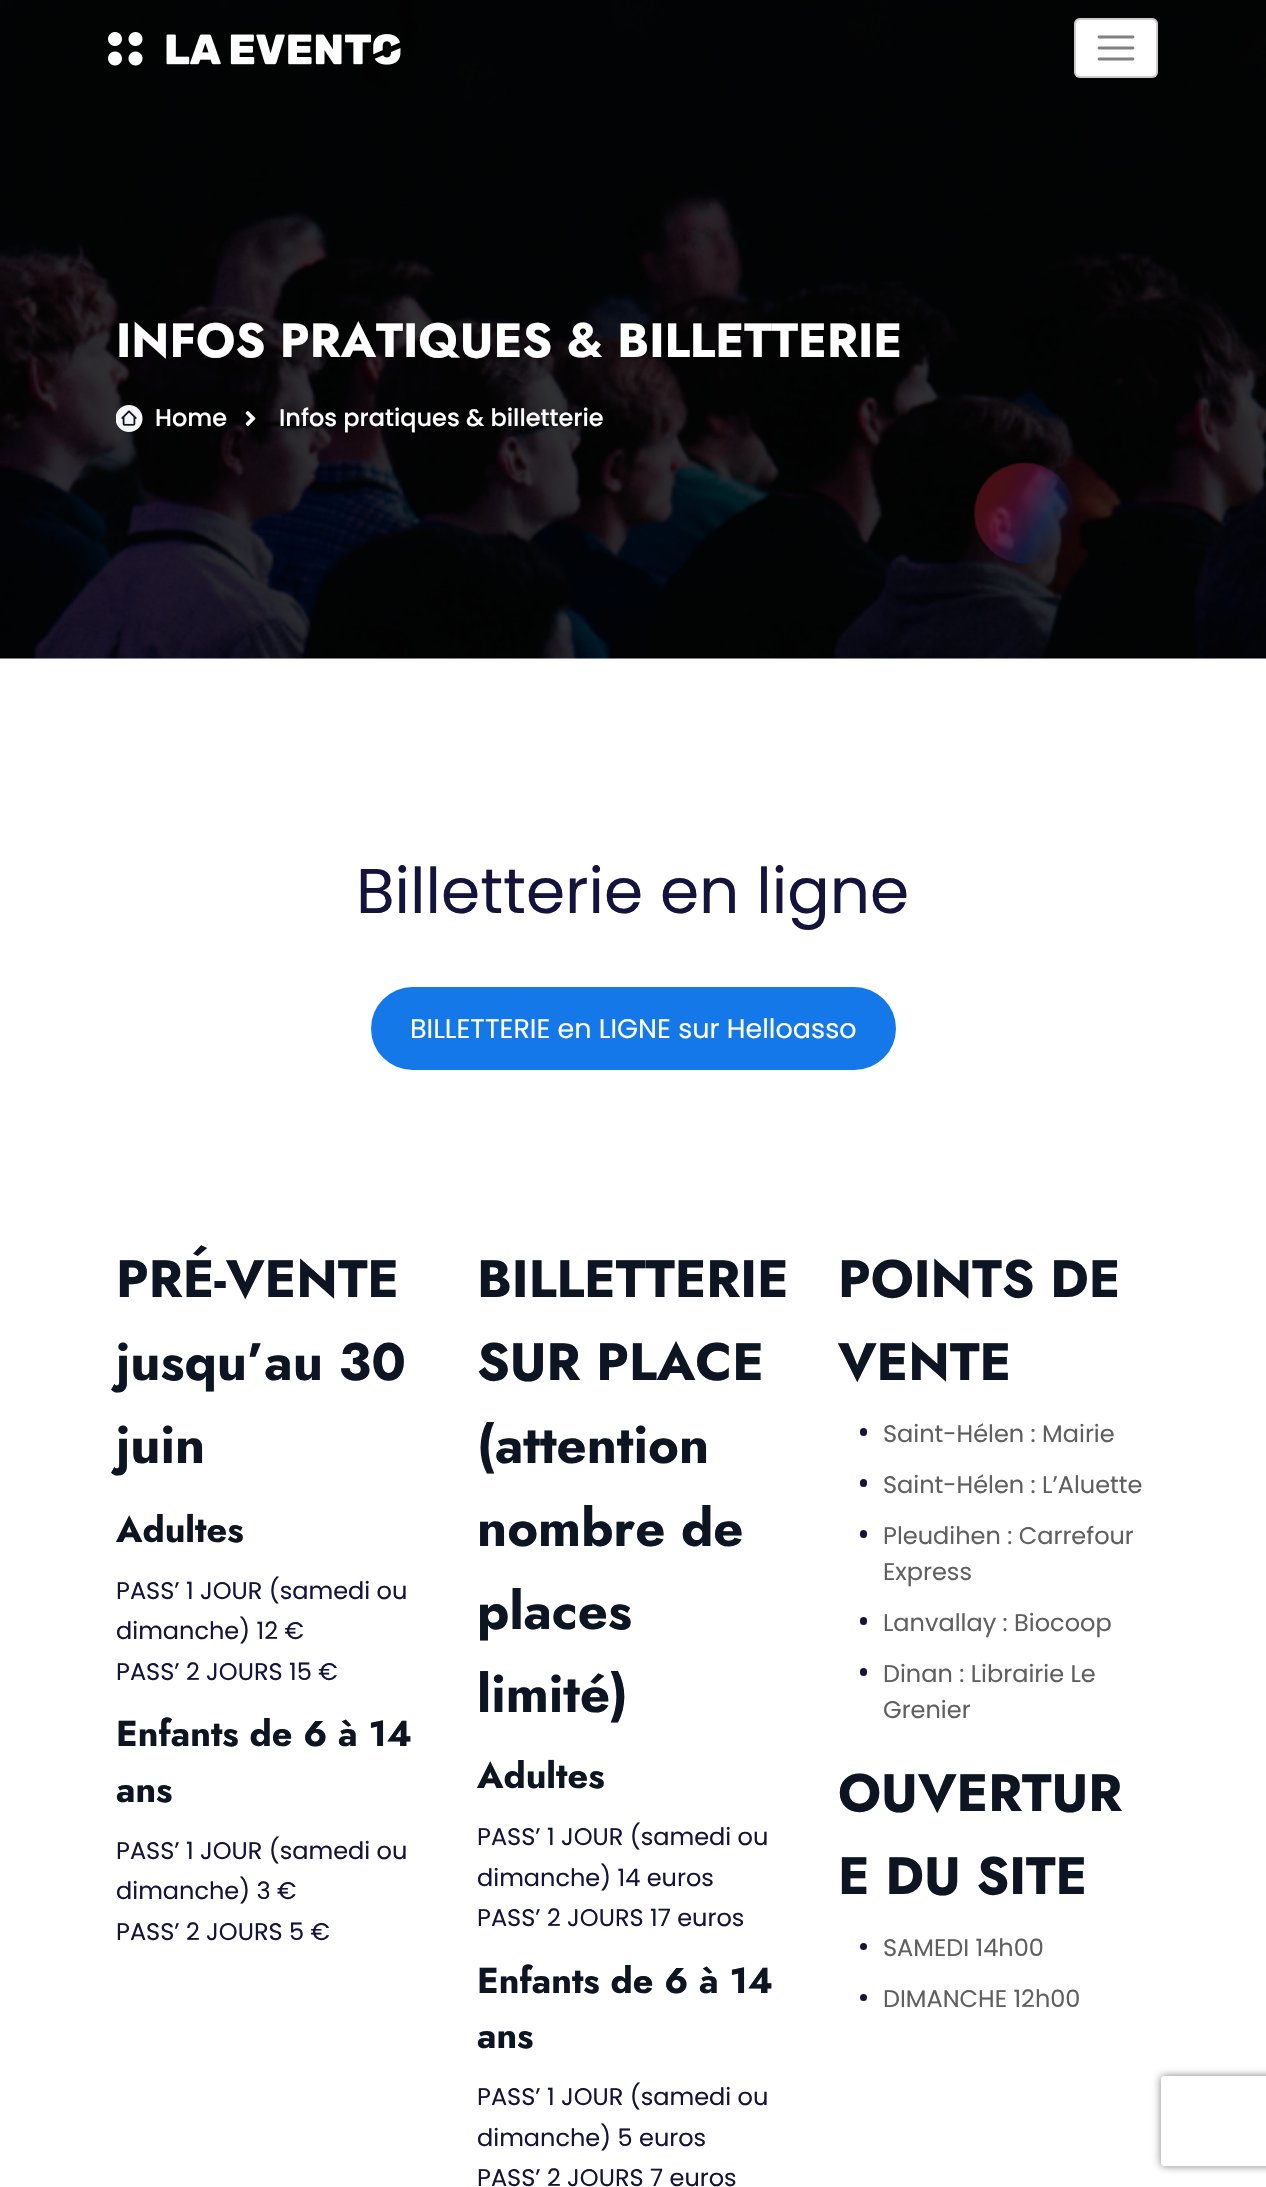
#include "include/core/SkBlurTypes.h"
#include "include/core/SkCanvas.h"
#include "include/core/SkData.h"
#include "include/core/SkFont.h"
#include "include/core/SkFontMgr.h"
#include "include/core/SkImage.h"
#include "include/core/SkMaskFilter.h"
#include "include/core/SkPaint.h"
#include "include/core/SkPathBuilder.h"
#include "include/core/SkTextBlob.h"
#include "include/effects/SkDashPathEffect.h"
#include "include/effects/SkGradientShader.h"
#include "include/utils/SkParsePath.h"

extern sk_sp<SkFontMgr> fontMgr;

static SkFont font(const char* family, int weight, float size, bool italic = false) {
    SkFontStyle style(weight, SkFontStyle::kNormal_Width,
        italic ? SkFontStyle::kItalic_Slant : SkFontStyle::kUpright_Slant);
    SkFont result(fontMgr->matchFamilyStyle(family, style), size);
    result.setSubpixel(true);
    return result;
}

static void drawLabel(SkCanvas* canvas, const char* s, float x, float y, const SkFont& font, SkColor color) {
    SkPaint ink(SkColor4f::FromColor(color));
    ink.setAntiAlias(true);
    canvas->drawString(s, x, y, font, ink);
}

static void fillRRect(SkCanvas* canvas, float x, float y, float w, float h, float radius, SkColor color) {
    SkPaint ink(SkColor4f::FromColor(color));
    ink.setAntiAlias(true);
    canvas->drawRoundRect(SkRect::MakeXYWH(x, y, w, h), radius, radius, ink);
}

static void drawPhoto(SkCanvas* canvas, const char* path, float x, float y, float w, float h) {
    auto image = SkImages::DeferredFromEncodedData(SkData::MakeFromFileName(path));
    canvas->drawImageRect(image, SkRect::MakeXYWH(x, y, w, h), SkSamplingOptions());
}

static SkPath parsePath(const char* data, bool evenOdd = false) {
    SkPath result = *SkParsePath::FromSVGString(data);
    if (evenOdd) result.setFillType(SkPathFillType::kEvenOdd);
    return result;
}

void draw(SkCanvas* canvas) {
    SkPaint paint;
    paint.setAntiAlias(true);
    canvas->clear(0xFFFFFFFF);
    drawPhoto(canvas, "assets/img2.png", 0, 0, 1266, 659);
    drawPhoto(canvas, "assets/img1.png", 108, 32, 293, 34);
    fillRRect(canvas, 1074, 18, 84, 60, 6, 0xFFFFFFFF);
    paint.setStroke(true);
    paint.setStrokeWidth(2);
    paint.setColor(0x33000000);
    canvas->drawRoundRect(SkRect::MakeXYWH(1075, 19, 82, 58), 5, 5, paint);
    paint.setStrokeWidth(2.8f);
    paint.setStrokeCap(SkPaint::kRound_Cap);
    paint.setColor(0xFF808080);
    canvas->drawPath(parsePath("M1099 37H1133M1099 48H1133M1099 59H1133"), paint);
    SkFont font1 = font("Jost", 700, 48);
    drawLabel(canvas, "INFOS PRATIQUES & BILLETTERIE", 116, 357, font1, 0xFFFFFFFF);
    drawPhoto(canvas, "assets/img3.png", 116, 405, 27, 27);
    SkFont font2 = font("Poppins", 500, 24);
    drawLabel(canvas, "Home", 155, 426, font2, 0xFFFFFFFF);
    drawPhoto(canvas, "assets/img4.png", 245, 411, 11, 15);
    drawLabel(canvas, "Infos pratiques & billetterie", 279, 426, font2, 0xFFFFFFFF);
    SkFont font3 = font("Poppins", 400, 63);
    drawLabel(canvas, "Billetterie en ligne", 356, 913, font3, 0xFF14133B);
    fillRRect(canvas, 371, 987, 525, 83, 41.5f, 0xFF1578E9);
    SkFont font4 = font("Poppins", 400, 27);
    drawLabel(canvas, "BILLETTERIE en LIGNE sur Helloasso", 410, 1038, font4, 0xFFFFFFFF);
    SkFont font5 = font("Jost", 700, 52.5f);
    drawLabel(canvas, "PRÉ-VENTE", 116, 1297, font5, 0xFF0D1422);
    drawLabel(canvas, "jusqu’au 30", 116, 1380, font5, 0xFF0D1422);
    drawLabel(canvas, "juin", 116, 1463, font5, 0xFF0D1422);
    SkFont font6 = font("Jost", 700, 36);
    drawLabel(canvas, "Adultes", 116, 1542, font6, 0xFF0D1422);
    SkFont font7 = font("Poppins", 400, 24);
    drawLabel(canvas, "PASS’ 1 JOUR (samedi ou", 116, 1599, font7, 0xFF14133B);
    drawLabel(canvas, "dimanche) 12 €", 116, 1639, font7, 0xFF14133B);
    drawLabel(canvas, "PASS’ 2 JOURS 15 €", 116, 1680, font7, 0xFF14133B);
    drawLabel(canvas, "Enfants de 6 à 14", 116, 1746, font6, 0xFF0D1422);
    drawLabel(canvas, "ans", 116, 1802, font6, 0xFF0D1422);
    drawLabel(canvas, "PASS’ 1 JOUR (samedi ou", 116, 1859, font7, 0xFF14133B);
    drawLabel(canvas, "dimanche) 3 €", 116, 1899, font7, 0xFF14133B);
    drawLabel(canvas, "PASS’ 2 JOURS 5 €", 116, 1940, font7, 0xFF14133B);
    drawLabel(canvas, "BILLETTERIE", 477, 1297, font5, 0xFF0D1422);
    drawLabel(canvas, "SUR PLACE", 477, 1380, font5, 0xFF0D1422);
    drawLabel(canvas, "(attention", 477, 1463, font5, 0xFF0D1422);
    drawLabel(canvas, "nombre de", 477, 1546, font5, 0xFF0D1422);
    drawLabel(canvas, "places", 477, 1629, font5, 0xFF0D1422);
    drawLabel(canvas, "limité)", 477, 1712, font5, 0xFF0D1422);
    drawLabel(canvas, "Adultes", 477, 1788, font6, 0xFF0D1422);
    drawLabel(canvas, "PASS’ 1 JOUR (samedi ou", 477, 1845, font7, 0xFF14133B);
    drawLabel(canvas, "dimanche) 14 euros", 477, 1886, font7, 0xFF14133B);
    drawLabel(canvas, "PASS’ 2 JOURS 17 euros", 477, 1926, font7, 0xFF14133B);
    drawLabel(canvas, "Enfants de 6 à 14", 477, 1993, font6, 0xFF0D1422);
    drawLabel(canvas, "ans", 477, 2048, font6, 0xFF0D1422);
    drawLabel(canvas, "PASS’ 1 JOUR (samedi ou", 477, 2105, font7, 0xFF14133B);
    drawLabel(canvas, "dimanche) 5 euros", 477, 2146, font7, 0xFF14133B);
    drawLabel(canvas, "PASS’ 2 JOURS 7 euros", 477, 2186, font7, 0xFF14133B);
    drawLabel(canvas, "POINTS DE", 838, 1297, font5, 0xFF0D1422);
    drawLabel(canvas, "VENTE", 838, 1380, font5, 0xFF0D1422);
    fillRRect(canvas, 860, 1428, 7, 8, 3.5f, 0xFF14133B);
    drawLabel(canvas, "Saint-Hélen : Mairie", 883, 1442, font7, 0xFF5F5F5F);
    fillRRect(canvas, 860, 1479, 7, 8, 3.5f, 0xFF14133B);
    drawLabel(canvas, "Saint-Hélen : L’Aluette", 883, 1493, font7, 0xFF5F5F5F);
    fillRRect(canvas, 860, 1530, 7, 8, 3.5f, 0xFF14133B);
    drawLabel(canvas, "Pleudihen : Carrefour", 883, 1544, font7, 0xFF5F5F5F);
    drawLabel(canvas, "Express", 883, 1580, font7, 0xFF5F5F5F);
    fillRRect(canvas, 860, 1617, 7, 8, 3.5f, 0xFF14133B);
    drawLabel(canvas, "Lanvallay : Biocoop", 883, 1631, font7, 0xFF5F5F5F);
    fillRRect(canvas, 860, 1668, 7, 8, 3.5f, 0xFF14133B);
    drawLabel(canvas, "Dinan : Librairie Le", 883, 1682, font7, 0xFF5F5F5F);
    drawLabel(canvas, "Grenier", 883, 1718, font7, 0xFF5F5F5F);
    drawLabel(canvas, "OUVERTUR", 838, 1811, font5, 0xFF0D1422);
    drawLabel(canvas, "E DU SITE", 838, 1894, font5, 0xFF0D1422);
    paint.setStroke(false);
    paint.setColor(0xFF14133B);
    canvas->drawCircle(863.5f, 1946.5f, 3.5f, paint);
    drawLabel(canvas, "SAMEDI 14h00", 883, 1956, font7, 0xFF5F5F5F);
    canvas->drawCircle(863.5f, 1997.5f, 3.5f, paint);
    drawLabel(canvas, "DIMANCHE 12h00", 883, 2007, font7, 0xFF5F5F5F);
    canvas->save();
    canvas->clipPath(parsePath("M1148 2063H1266V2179H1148ZM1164 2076H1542C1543.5 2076 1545 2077.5 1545 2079V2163C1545 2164.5 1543.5 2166 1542 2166H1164C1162.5 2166 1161 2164.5 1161 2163V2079C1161 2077.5 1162.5 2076 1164 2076Z", true), true);
    paint.setColor(0xFF808080);
    paint.setMaskFilter(SkMaskFilter::MakeBlur(kNormal_SkBlurStyle, 4));
    canvas->drawRoundRect(SkRect::MakeXYWH(1161, 2076, 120, 90), 3, 3, paint);
    paint.setMaskFilter(nullptr);
    canvas->restore();
}
